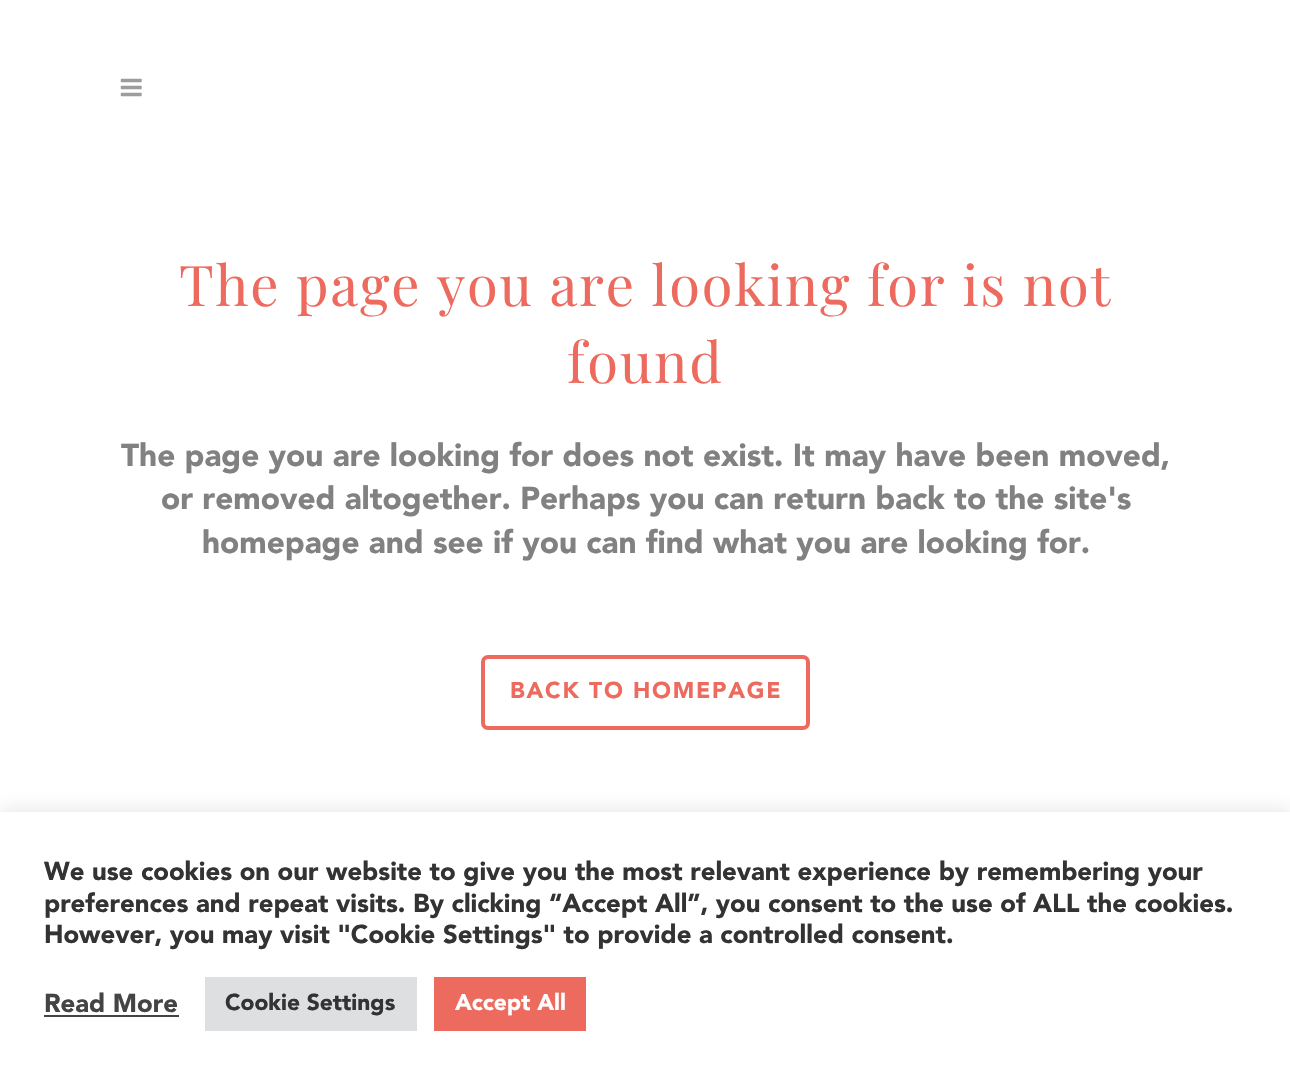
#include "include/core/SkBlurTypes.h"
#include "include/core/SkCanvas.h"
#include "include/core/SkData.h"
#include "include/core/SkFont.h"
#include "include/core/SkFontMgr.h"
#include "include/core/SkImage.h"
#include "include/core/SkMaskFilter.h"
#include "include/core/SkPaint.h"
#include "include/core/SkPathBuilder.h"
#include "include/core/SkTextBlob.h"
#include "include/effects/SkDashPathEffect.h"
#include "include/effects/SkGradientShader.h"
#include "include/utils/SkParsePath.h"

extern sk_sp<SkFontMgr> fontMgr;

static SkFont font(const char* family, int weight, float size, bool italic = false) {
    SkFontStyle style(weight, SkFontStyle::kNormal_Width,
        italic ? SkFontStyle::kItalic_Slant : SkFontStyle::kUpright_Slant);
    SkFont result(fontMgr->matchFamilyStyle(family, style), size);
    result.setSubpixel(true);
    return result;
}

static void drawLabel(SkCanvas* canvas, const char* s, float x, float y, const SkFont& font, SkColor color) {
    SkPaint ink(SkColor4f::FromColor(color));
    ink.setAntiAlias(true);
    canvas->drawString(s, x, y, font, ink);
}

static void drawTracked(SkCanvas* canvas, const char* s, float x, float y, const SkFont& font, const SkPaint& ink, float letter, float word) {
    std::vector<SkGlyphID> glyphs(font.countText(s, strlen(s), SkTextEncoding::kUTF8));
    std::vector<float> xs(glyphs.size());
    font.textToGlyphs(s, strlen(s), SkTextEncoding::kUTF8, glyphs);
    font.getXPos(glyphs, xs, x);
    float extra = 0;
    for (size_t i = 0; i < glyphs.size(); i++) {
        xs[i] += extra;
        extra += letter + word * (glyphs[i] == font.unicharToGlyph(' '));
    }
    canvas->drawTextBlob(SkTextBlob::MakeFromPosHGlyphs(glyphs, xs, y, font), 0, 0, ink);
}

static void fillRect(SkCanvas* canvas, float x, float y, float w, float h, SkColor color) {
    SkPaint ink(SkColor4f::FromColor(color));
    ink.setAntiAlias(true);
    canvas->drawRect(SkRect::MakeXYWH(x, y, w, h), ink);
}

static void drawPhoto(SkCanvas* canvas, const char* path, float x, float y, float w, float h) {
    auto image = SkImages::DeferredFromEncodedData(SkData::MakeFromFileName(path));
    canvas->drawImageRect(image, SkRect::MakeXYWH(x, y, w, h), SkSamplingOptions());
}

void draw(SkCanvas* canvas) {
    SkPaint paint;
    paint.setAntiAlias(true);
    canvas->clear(0xFFFFFFFF);
    drawPhoto(canvas, "assets/img1.png", 120, 78, 22, 19);
    SkFont font1 = font("Playfair Display", 400, 56);
    paint.setColor(0xFFED6A5E);
    drawTracked(canvas, "The page you are looking for is not", 179, 306, font1, paint, 1.75f, 0);
    drawTracked(canvas, "found", 567, 383, font1, paint, 1.75f, 0);
    SkFont font2 = font("Avenir", 900, 31.5f);
    drawLabel(canvas, "The page you are looking for does not exist. It may have been moved,", 121, 466, font2, 0xFF818181);
    drawLabel(canvas, "or removed altogether. Perhaps you can return back to the site's", 161, 509, font2, 0xFF818181);
    drawLabel(canvas, "homepage and see if you can find what you are looking for.", 202, 553, font2, 0xFF818181);
    paint.setStroke(true);
    paint.setStrokeWidth(4);
    canvas->drawRoundRect(SkRect::MakeXYWH(483, 657, 325, 71), 5, 5, paint);
    SkFont font3 = font("Avenir", 900, 22.75f);
    paint.setStroke(false);
    drawTracked(canvas, "BACK TO HOMEPAGE", 510, 698, font3, paint, 1.75f, 0);
    paint.setColor(0x4DACABAB);
    paint.setMaskFilter(SkMaskFilter::MakeBlur(kNormal_SkBlurStyle, 9));
    canvas->drawRect(SkRect::MakeXYWH(0, 810, 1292, 272), paint);
    paint.setMaskFilter(nullptr);
    fillRect(canvas, 0, 812, 1290, 270, 0xFFFFFFFF);
    SkFont font4 = font("Avenir", 900, 25.65f);
    drawLabel(canvas, "We use cookies on our website to give you the most relevant experience by remembering your", 44, 880, font4, 0xFF333333);
    drawLabel(canvas, "preferences and repeat visits. By clicking “Accept All”, you consent to the use of ALL the cookies.", 44, 912, font4, 0xFF333333);
    drawLabel(canvas, "However, you may visit \"Cookie Settings\" to provide a controlled consent.", 44, 943, font4, 0xFF333333);
    drawLabel(canvas, "Read More", 44, 1012, font4, 0xFF444444);
    fillRect(canvas, 44, 1015, 135, 2, 0xFF444444);
    fillRect(canvas, 205, 977, 212, 54, 0xFFDEDFE0);
    drawLabel(canvas, "Cookie Settings", 225, 1010, font3, 0xFF333333);
    fillRect(canvas, 434, 977, 152, 54, 0xFFED6A5E);
    drawLabel(canvas, "Accept All", 455, 1010, font3, 0xFFFFFFFF);
}
